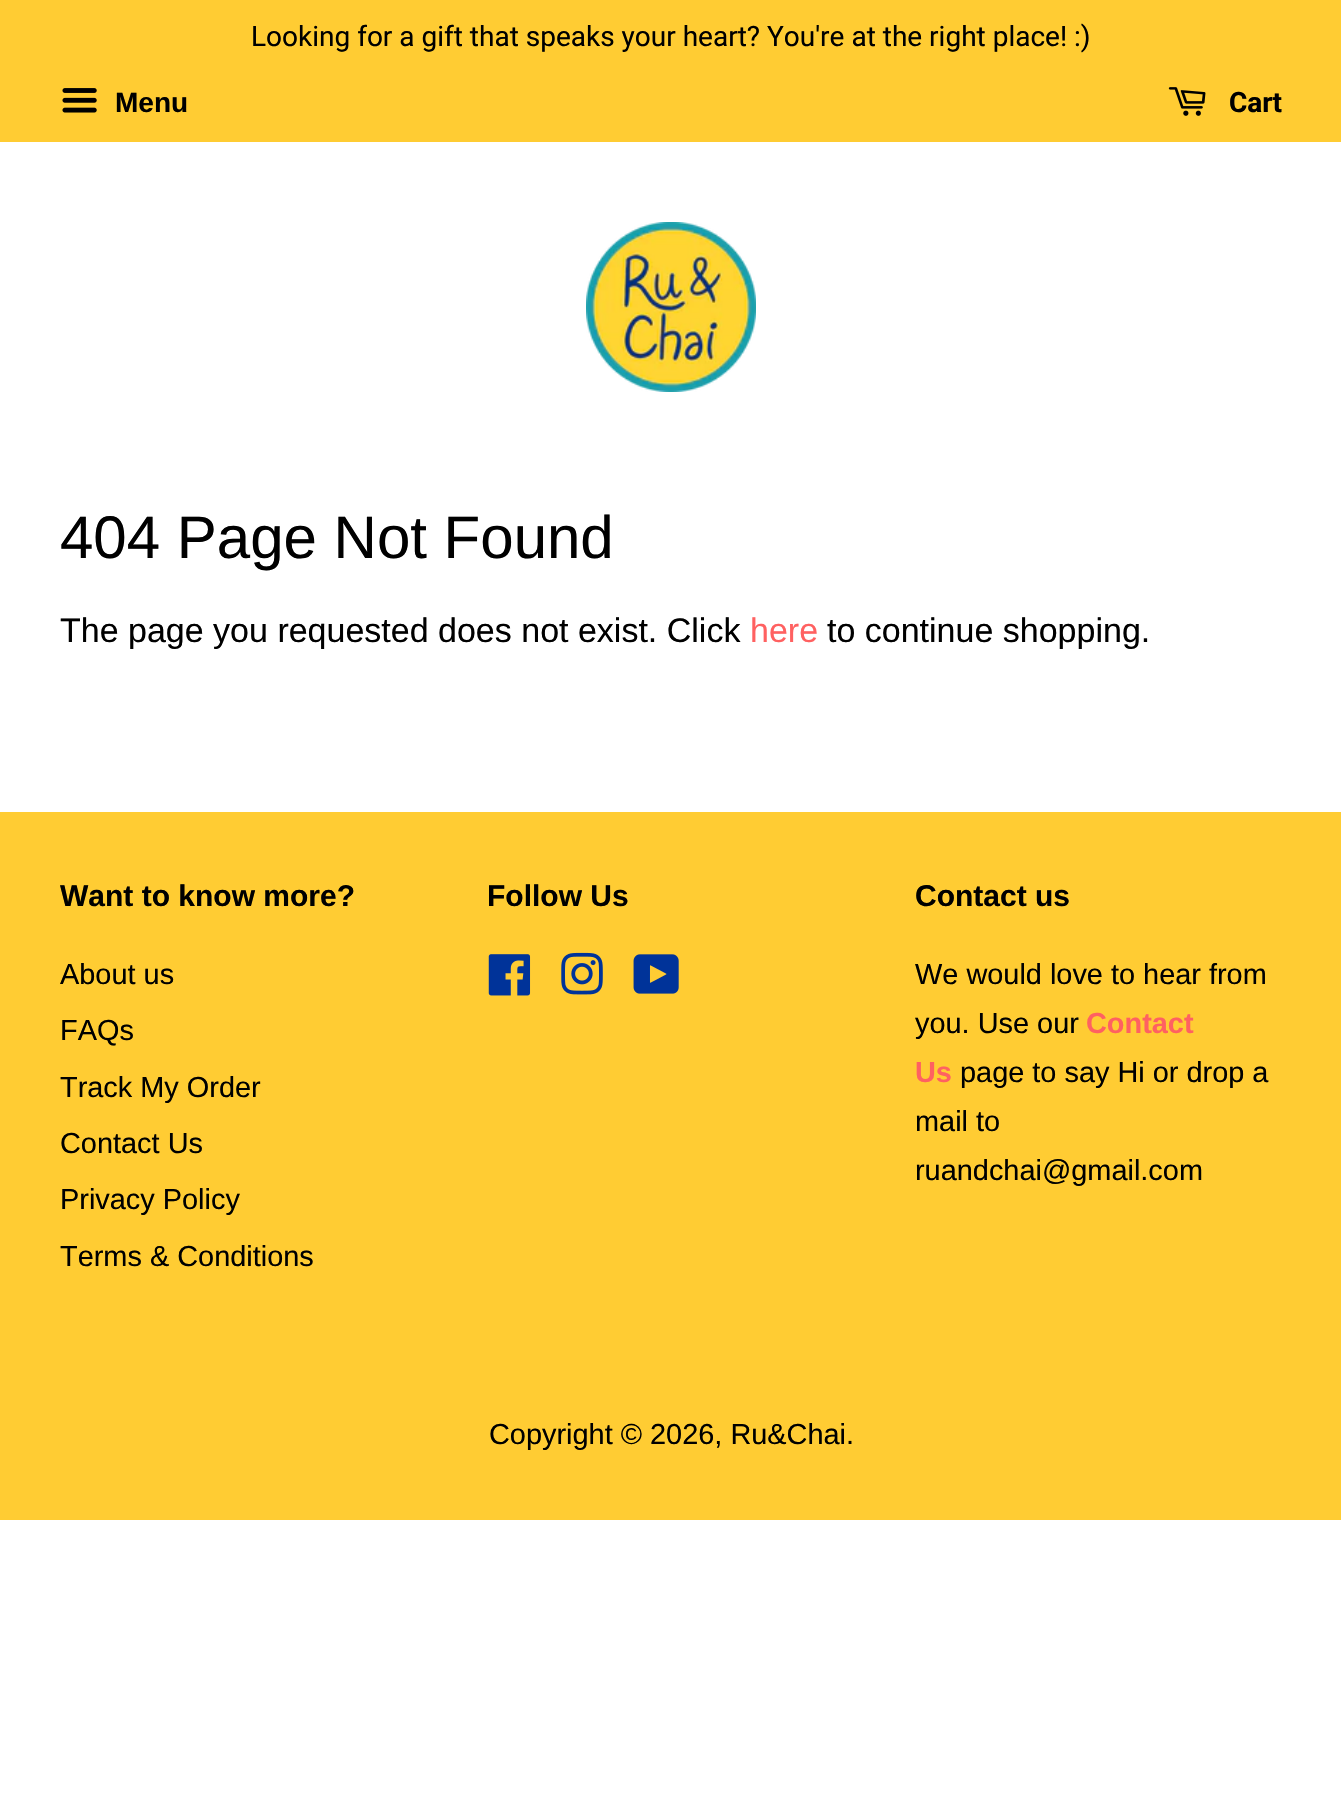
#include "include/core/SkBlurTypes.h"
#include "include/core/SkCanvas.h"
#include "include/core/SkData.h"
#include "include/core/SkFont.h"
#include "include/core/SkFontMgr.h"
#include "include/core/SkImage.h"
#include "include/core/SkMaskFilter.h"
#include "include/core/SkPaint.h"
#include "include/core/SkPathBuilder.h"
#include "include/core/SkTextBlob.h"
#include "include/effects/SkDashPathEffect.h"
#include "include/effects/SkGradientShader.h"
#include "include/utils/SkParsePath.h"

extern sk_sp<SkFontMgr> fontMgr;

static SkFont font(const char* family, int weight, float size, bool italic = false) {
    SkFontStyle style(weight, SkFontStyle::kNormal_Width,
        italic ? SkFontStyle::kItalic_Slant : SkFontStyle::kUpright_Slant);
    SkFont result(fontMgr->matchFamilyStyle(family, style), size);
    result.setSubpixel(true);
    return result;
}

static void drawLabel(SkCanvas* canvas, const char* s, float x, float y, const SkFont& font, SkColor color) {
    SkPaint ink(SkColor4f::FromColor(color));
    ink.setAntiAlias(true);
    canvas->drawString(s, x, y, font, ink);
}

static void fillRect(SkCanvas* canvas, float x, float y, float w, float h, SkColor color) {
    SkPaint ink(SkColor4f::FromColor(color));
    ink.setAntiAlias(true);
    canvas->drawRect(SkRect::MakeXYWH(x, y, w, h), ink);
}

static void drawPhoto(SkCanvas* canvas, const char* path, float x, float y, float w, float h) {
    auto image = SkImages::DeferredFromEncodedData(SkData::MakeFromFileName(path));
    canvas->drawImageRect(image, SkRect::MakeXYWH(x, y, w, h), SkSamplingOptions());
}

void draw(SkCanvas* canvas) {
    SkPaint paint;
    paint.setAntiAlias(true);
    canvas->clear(0xFFFFFFFF);
    fillRect(canvas, 0, 0, 1341, 142, 0xFFFFCC33);
    SkFont font1 = font("Roboto", 400, 28);
    drawLabel(canvas, "Looking for a gift that speaks your heart? You're at the right place! :)", 251, 46, font1, 0xFF000000);
    drawPhoto(canvas, "assets/img1.png", 62, 88, 35, 25);
    SkFont font2 = font("Liberation Sans", 700, 28);
    drawLabel(canvas, "Menu", 115, 112, font2, 0xFF000000);
    drawPhoto(canvas, "assets/img2.png", 1168, 87, 38, 29);
    SkFont font3 = font("Roboto", 700, 28);
    drawLabel(canvas, "Cart", 1229, 112, font3, 0xFF000000);
    drawPhoto(canvas, "assets/img3.png", 586, 222, 170, 170);
    SkFont font4 = font("Liberation Sans", 400, 60);
    drawLabel(canvas, "404 Page Not Found", 60, 558, font4, 0xFF000000);
    SkFont font5 = font("Liberation Sans", 400, 34);
    drawLabel(canvas, "The page you requested does not exist. Click", 60, 642, font5, 0xFF000000);
    drawLabel(canvas, "here", 750, 642, font5, 0xFFFF6161);
    drawLabel(canvas, "to continue shopping.", 827, 642, font5, 0xFF000000);
    fillRect(canvas, 0, 812, 1341, 708, 0xFFFFCC33);
    SkFont font6 = font("Liberation Sans", 700, 30);
    drawLabel(canvas, "Want to know more?", 60, 906, font6, 0xFF000000);
    SkFont font7 = font("Liberation Sans", 400, 28.9f);
    drawLabel(canvas, "About us", 60, 984, font7, 0xFF000000);
    drawLabel(canvas, "FAQs", 60, 1040, font7, 0xFF000000);
    drawLabel(canvas, "Track My Order", 60, 1097, font7, 0xFF000000);
    drawLabel(canvas, "Contact Us", 60, 1153, font7, 0xFF000000);
    drawLabel(canvas, "Privacy Policy", 60, 1209, font7, 0xFF000000);
    drawLabel(canvas, "Terms & Conditions", 60, 1266, font7, 0xFF000000);
    drawLabel(canvas, "Follow Us", 487, 906, font6, 0xFF000000);
    drawPhoto(canvas, "assets/img4.png", 488, 954, 43, 42);
    drawPhoto(canvas, "assets/img5.png", 561, 952, 42, 43);
    drawPhoto(canvas, "assets/img6.png", 633, 954, 46, 40);
    drawLabel(canvas, "Contact us", 915, 906, font6, 0xFF000000);
    drawLabel(canvas, "We would love to hear from", 915, 984, font7, 0xFF000000);
    drawLabel(canvas, "you. Use our", 915, 1033, font7, 0xFF000000);
    SkFont font8 = font("Liberation Sans", 700, 28.9f);
    drawLabel(canvas, "Contact", 1086, 1033, font8, 0xFFFF6161);
    drawLabel(canvas, "Us", 915, 1082, font8, 0xFFFF6161);
    drawLabel(canvas, "page to say Hi or drop a", 960, 1082, font7, 0xFF000000);
    drawLabel(canvas, "mail to", 915, 1131, font7, 0xFF000000);
    drawLabel(canvas, "ruandchai@gmail.com", 915, 1180, font7, 0xFF000000);
    drawLabel(canvas, "Copyright © 2026, Ru&Chai.", 489, 1444, font7, 0xFF000000);
}
